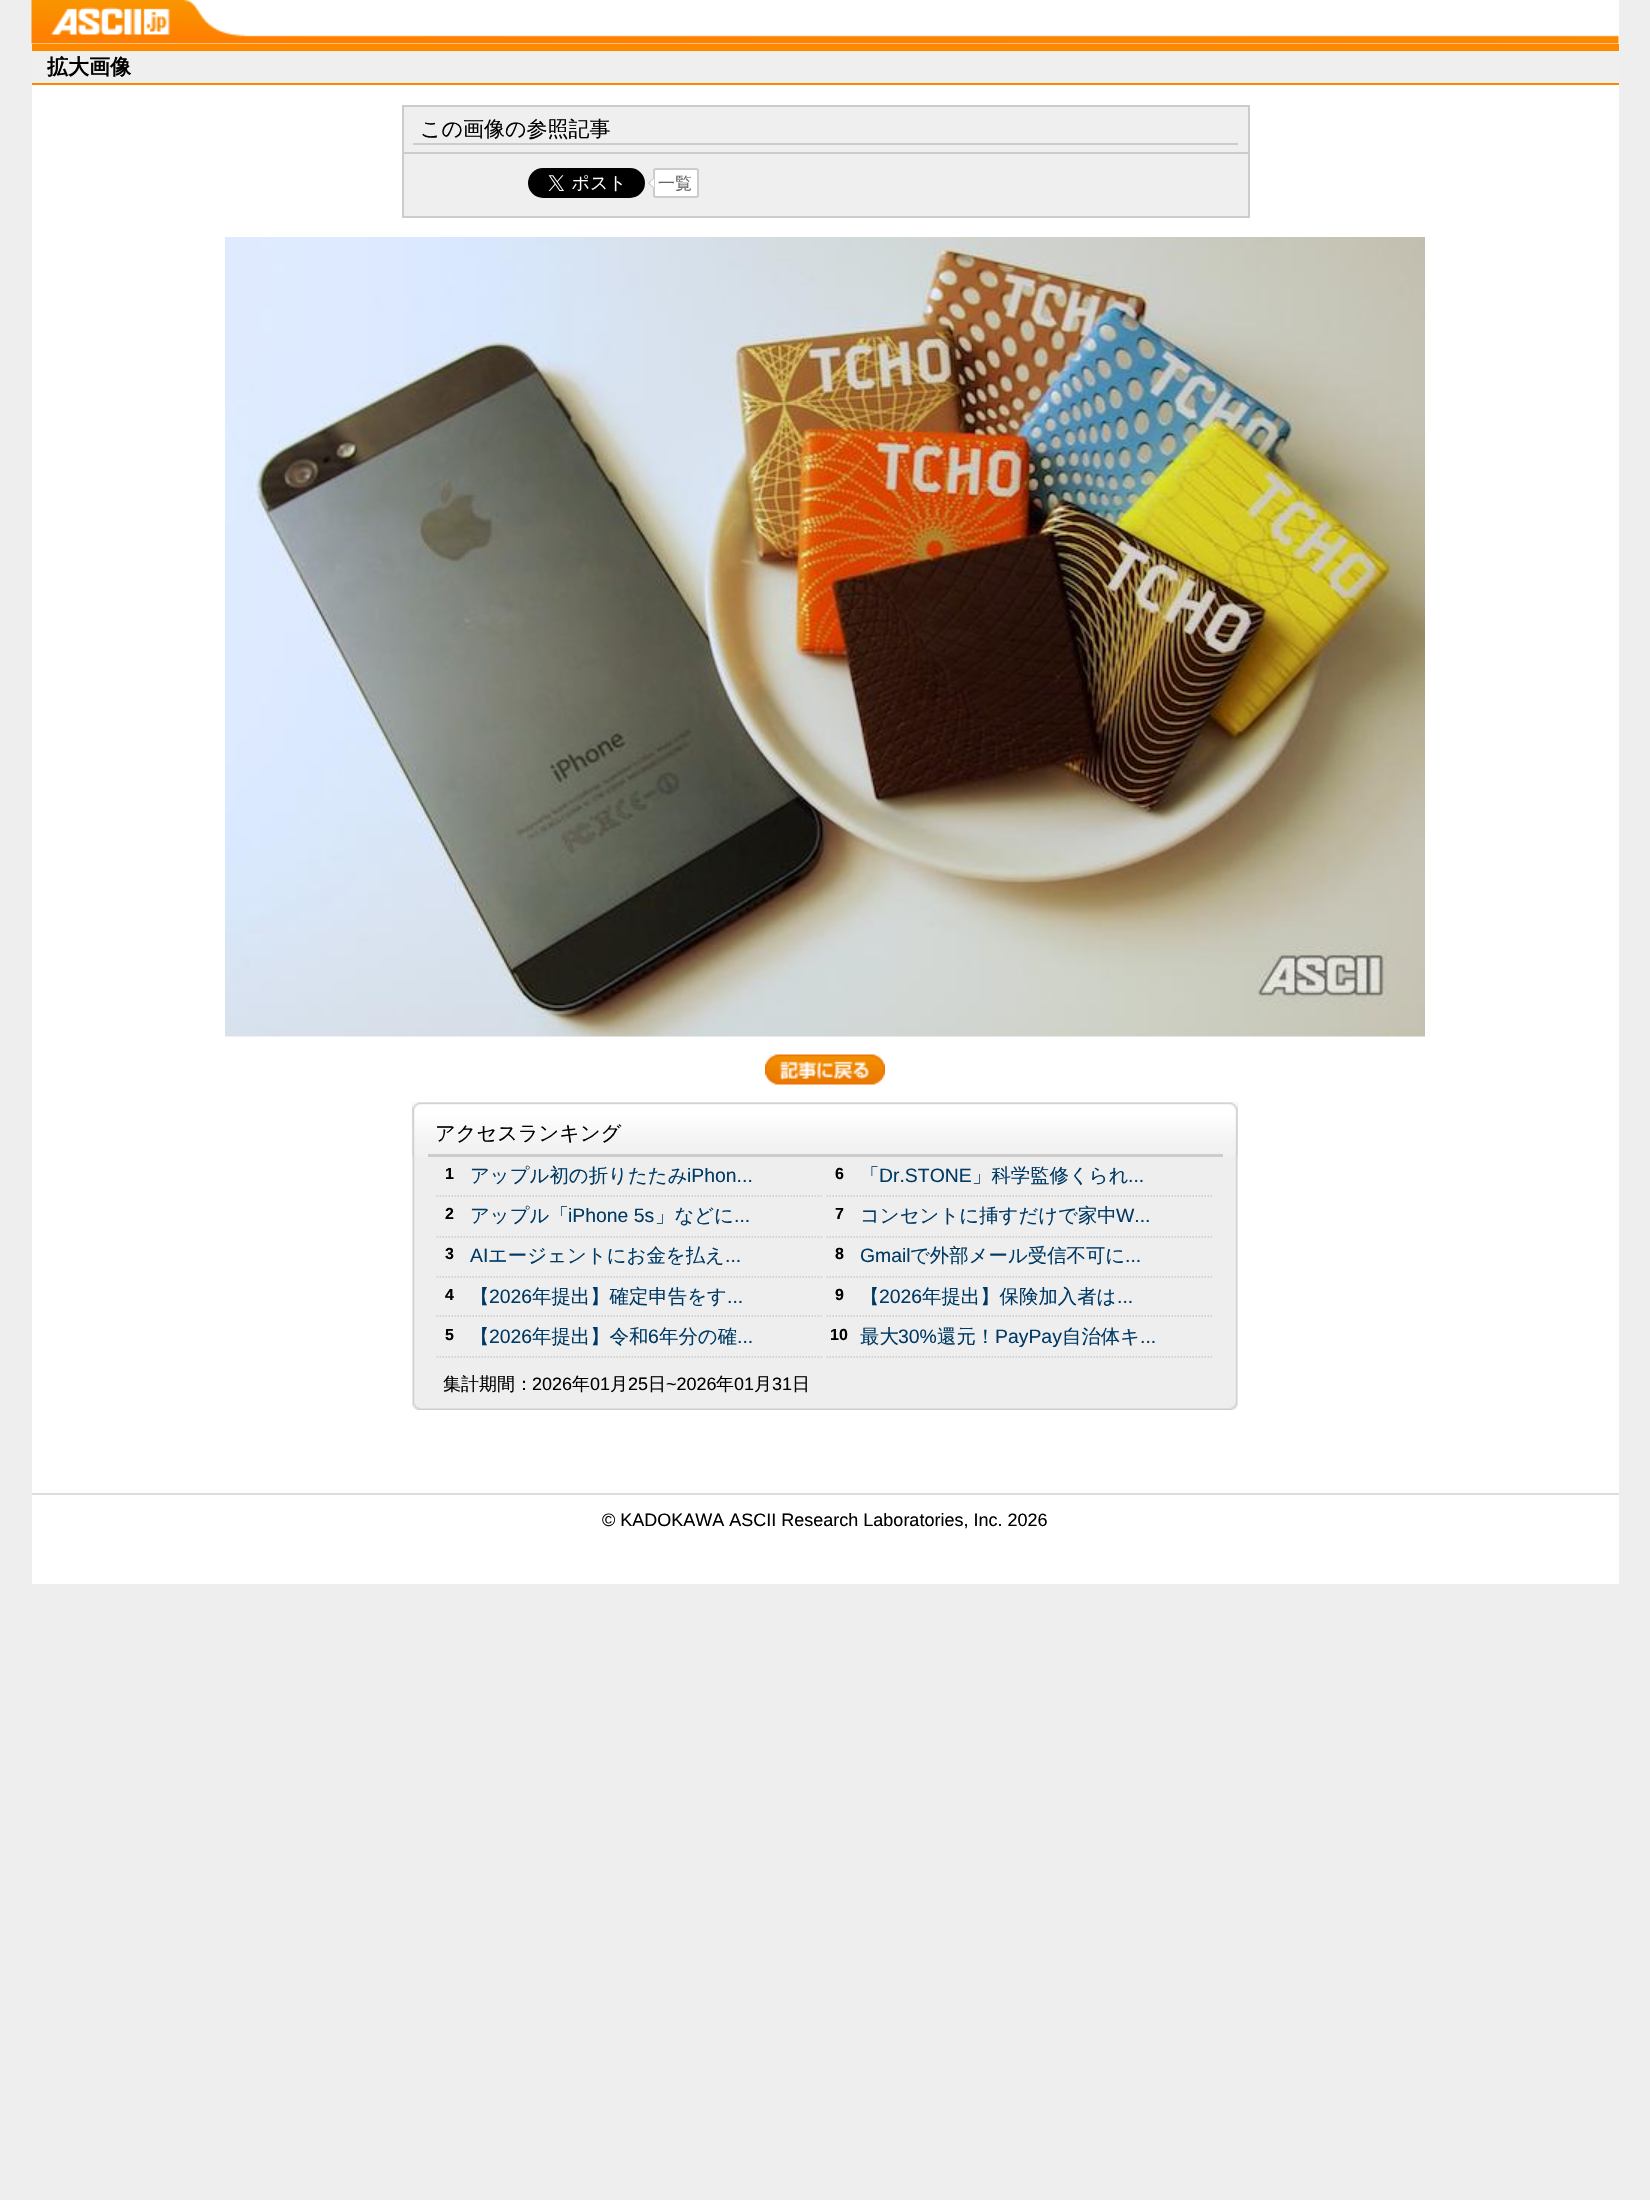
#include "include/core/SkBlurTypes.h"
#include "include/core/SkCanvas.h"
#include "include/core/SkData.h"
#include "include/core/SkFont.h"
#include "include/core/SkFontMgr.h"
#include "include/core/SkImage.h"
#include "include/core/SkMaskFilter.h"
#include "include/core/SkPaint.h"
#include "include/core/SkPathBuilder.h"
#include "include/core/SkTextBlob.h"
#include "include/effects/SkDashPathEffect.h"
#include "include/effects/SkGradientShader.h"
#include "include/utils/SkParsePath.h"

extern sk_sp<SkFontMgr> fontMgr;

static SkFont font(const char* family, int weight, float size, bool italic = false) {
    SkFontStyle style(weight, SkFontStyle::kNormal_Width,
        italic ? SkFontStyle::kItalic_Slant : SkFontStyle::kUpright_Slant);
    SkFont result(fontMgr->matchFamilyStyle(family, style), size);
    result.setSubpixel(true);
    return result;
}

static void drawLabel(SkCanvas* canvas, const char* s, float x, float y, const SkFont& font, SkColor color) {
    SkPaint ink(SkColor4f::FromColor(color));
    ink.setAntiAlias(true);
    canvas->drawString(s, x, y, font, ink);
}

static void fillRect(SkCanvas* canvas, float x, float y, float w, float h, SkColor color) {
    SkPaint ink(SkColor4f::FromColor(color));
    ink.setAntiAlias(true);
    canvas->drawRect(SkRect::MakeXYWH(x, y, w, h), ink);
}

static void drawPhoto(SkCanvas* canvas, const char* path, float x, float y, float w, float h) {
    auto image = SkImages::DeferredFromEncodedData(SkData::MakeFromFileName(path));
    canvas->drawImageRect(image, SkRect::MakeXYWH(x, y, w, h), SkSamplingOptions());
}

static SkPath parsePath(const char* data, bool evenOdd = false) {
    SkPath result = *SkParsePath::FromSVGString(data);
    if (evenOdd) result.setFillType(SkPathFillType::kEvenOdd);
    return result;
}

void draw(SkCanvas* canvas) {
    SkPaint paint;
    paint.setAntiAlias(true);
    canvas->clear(0xFFEEEEEE);
    fillRect(canvas, 32, 0, 1587, 1584, 0xFFFFFFFF);
    drawPhoto(canvas, "assets/img1.png", 31, 0, 1588, 44);
    drawPhoto(canvas, "assets/img2.png", 51, 7, 119, 28);
    fillRect(canvas, 32, 51, 1587, 32, 0xFFEFEFEF);
    fillRect(canvas, 32, 44, 1587, 7, 0xFFFC8900);
    fillRect(canvas, 32, 83, 1587, 2, 0xFFFC8900);
    SkFont font1 = font("WenQuanYi Zen Hei", 700, 21);
    drawLabel(canvas, "拡大画像", 47, 74, font1, 0xFF000000);
    paint.setColor(0xFFEFEFEF);
    canvas->drawRect(SkRect::MakeXYWH(403, 106, 846, 111), paint);
    paint.setStroke(true);
    paint.setStrokeWidth(2);
    paint.setColor(0xFFCCCCCC);
    canvas->drawRect(SkRect::MakeXYWH(403, 106, 846, 111), paint);
    fillRect(canvas, 413, 143, 825, 2, 0xFFCCCCCC);
    SkFont font2 = font("WenQuanYi Zen Hei", 500, 21);
    drawLabel(canvas, "この画像の参照記事", 420, 136, font2, 0xFF000000);
    fillRect(canvas, 404, 152, 844, 2, 0xFFCCCCCC);
    drawPhoto(canvas, "assets/img3.png", 528, 168, 117, 30);
    paint.setStroke(false);
    paint.setColor(0xFFFFFFFF);
    canvas->drawRoundRect(SkRect::MakeXYWH(654, 169, 44, 28), 2, 2, paint);
    paint.setStroke(true);
    paint.setColor(0xFFCCCCCC);
    canvas->drawRoundRect(SkRect::MakeXYWH(654, 169, 44, 28), 2, 2, paint);
    paint.setStroke(false);
    canvas->drawPath(parsePath("M654 177V189L648 183Z"), paint);
    SkFont font3 = font("WenQuanYi Zen Hei", 500, 17);
    drawLabel(canvas, "一覧", 658, 189, font3, 0xFF666666);
    paint.setColor(0xFFFFFFFF);
    canvas->drawPath(parsePath("M654 178.5V187.5L649.5 183Z"), paint);
    drawPhoto(canvas, "assets/img4.png", 225, 237, 1200, 800);
    drawPhoto(canvas, "assets/img5.png", 765, 1054, 120, 31);
    drawPhoto(canvas, "assets/img6.png", 412, 1102, 826, 308);
    drawPhoto(canvas, "assets/img7.png", 412, 1102, 826, 55);
    fillRect(canvas, 428, 1154, 795, 3, 0xFFCCCCCC);
    SkFont font4 = font("WenQuanYi Zen Hei", 500, 20.25f);
    drawLabel(canvas, "アクセスランキング", 435, 1140, font4, 0xFF000000);
    paint.setStroke(true);
    paint.setStrokeWidth(1.5f);
    paint.setColor(0xFFCCCCCC);
    paint.setPathEffect(SkDashPathEffect::Make({{1.5f, 1.5f}}, 0));
    canvas->drawPath(parsePath("M436.5 1196H823.5"), paint);
    paint.setPathEffect(nullptr);
    SkFont font5 = font("Liberation Sans", 700, 16);
    drawLabel(canvas, "1", 445, 1179, font5, 0xFF000000);
    SkFont font6 = font("WenQuanYi Zen Hei", 500, 19.4f);
    drawLabel(canvas, "アップル初の折りたたみ", 470, 1182, font6, 0xFF003964);
    SkFont font7 = font("Liberation Sans", 400, 19.4f);
    drawLabel(canvas, "iPhon...", 687, 1182, font7, 0xFF003964);
    paint.setPathEffect(SkDashPathEffect::Make({{1.5f, 1.5f}}, 0));
    canvas->drawPath(parsePath("M436.5 1237H823.5"), paint);
    paint.setPathEffect(nullptr);
    drawLabel(canvas, "2", 445, 1219, font5, 0xFF000000);
    drawLabel(canvas, "アップル「", 470, 1222, font6, 0xFF003964);
    drawLabel(canvas, "iPhone 5s", 568, 1222, font7, 0xFF003964);
    drawLabel(canvas, "」などに", 655, 1222, font6, 0xFF003964);
    drawLabel(canvas, "...", 734, 1222, font7, 0xFF003964);
    paint.setPathEffect(SkDashPathEffect::Make({{1.5f, 1.5f}}, 0));
    canvas->drawPath(parsePath("M436.5 1277H823.5"), paint);
    paint.setPathEffect(nullptr);
    drawLabel(canvas, "3", 445, 1259, font5, 0xFF000000);
    drawLabel(canvas, "AI", 470, 1262, font7, 0xFF003964);
    drawLabel(canvas, "エージェントにお金を払え", 488, 1262, font6, 0xFF003964);
    drawLabel(canvas, "...", 725, 1262, font7, 0xFF003964);
    paint.setPathEffect(SkDashPathEffect::Make({{1.5f, 1.5f}}, 0));
    canvas->drawPath(parsePath("M436.5 1316H823.5"), paint);
    paint.setPathEffect(nullptr);
    drawLabel(canvas, "4", 445, 1300, font5, 0xFF000000);
    drawLabel(canvas, "【", 470, 1303, font6, 0xFF003964);
    drawLabel(canvas, "2026", 489, 1303, font7, 0xFF003964);
    drawLabel(canvas, "年提出】確定申告をす", 532, 1303, font6, 0xFF003964);
    drawLabel(canvas, "...", 727, 1303, font7, 0xFF003964);
    paint.setPathEffect(SkDashPathEffect::Make({{1.5f, 1.5f}}, 0));
    canvas->drawPath(parsePath("M436.5 1357H823.5"), paint);
    paint.setPathEffect(nullptr);
    drawLabel(canvas, "5", 445, 1340, font5, 0xFF000000);
    drawLabel(canvas, "【", 470, 1343, font6, 0xFF003964);
    drawLabel(canvas, "2026", 489, 1343, font7, 0xFF003964);
    drawLabel(canvas, "年提出】令和", 532, 1343, font6, 0xFF003964);
    drawLabel(canvas, "6", 648, 1343, font7, 0xFF003964);
    drawLabel(canvas, "年分の確", 659, 1343, font6, 0xFF003964);
    drawLabel(canvas, "...", 737, 1343, font7, 0xFF003964);
    paint.setPathEffect(SkDashPathEffect::Make({{1.5f, 1.5f}}, 0));
    canvas->drawPath(parsePath("M826.5 1196H1213.5"), paint);
    paint.setPathEffect(nullptr);
    drawLabel(canvas, "6", 835, 1179, font5, 0xFF000000);
    drawLabel(canvas, "「", 860, 1182, font6, 0xFF003964);
    drawLabel(canvas, "Dr.STONE", 879, 1182, font7, 0xFF003964);
    drawLabel(canvas, "」科学監修くられ", 972, 1182, font6, 0xFF003964);
    drawLabel(canvas, "...", 1128, 1182, font7, 0xFF003964);
    paint.setPathEffect(SkDashPathEffect::Make({{1.5f, 1.5f}}, 0));
    canvas->drawPath(parsePath("M826.5 1237H1213.5"), paint);
    paint.setPathEffect(nullptr);
    drawLabel(canvas, "7", 835, 1219, font5, 0xFF000000);
    drawLabel(canvas, "コンセントに挿すだけで家中", 860, 1222, font6, 0xFF003964);
    drawLabel(canvas, "W...", 1116, 1222, font7, 0xFF003964);
    paint.setPathEffect(SkDashPathEffect::Make({{1.5f, 1.5f}}, 0));
    canvas->drawPath(parsePath("M826.5 1277H1213.5"), paint);
    paint.setPathEffect(nullptr);
    drawLabel(canvas, "8", 835, 1259, font5, 0xFF000000);
    drawLabel(canvas, "Gmail", 860, 1262, font7, 0xFF003964);
    drawLabel(canvas, "で外部メール受信不可に", 910, 1262, font6, 0xFF003964);
    drawLabel(canvas, "...", 1125, 1262, font7, 0xFF003964);
    paint.setPathEffect(SkDashPathEffect::Make({{1.5f, 1.5f}}, 0));
    canvas->drawPath(parsePath("M826.5 1316H1213.5"), paint);
    paint.setPathEffect(nullptr);
    drawLabel(canvas, "9", 835, 1300, font5, 0xFF000000);
    drawLabel(canvas, "【", 860, 1303, font6, 0xFF003964);
    drawLabel(canvas, "2026", 879, 1303, font7, 0xFF003964);
    drawLabel(canvas, "年提出】保険加入者は", 922, 1303, font6, 0xFF003964);
    drawLabel(canvas, "...", 1117, 1303, font7, 0xFF003964);
    paint.setPathEffect(SkDashPathEffect::Make({{1.5f, 1.5f}}, 0));
    canvas->drawPath(parsePath("M826.5 1357H1213.5"), paint);
    paint.setPathEffect(nullptr);
    drawLabel(canvas, "10", 830, 1340, font5, 0xFF000000);
    drawLabel(canvas, "最大", 860, 1343, font6, 0xFF003964);
    drawLabel(canvas, "30%", 898, 1343, font7, 0xFF003964);
    drawLabel(canvas, "還元！", 937, 1343, font6, 0xFF003964);
    drawLabel(canvas, "PayPay", 995, 1343, font7, 0xFF003964);
    drawLabel(canvas, "自治体キ", 1062, 1343, font6, 0xFF003964);
    drawLabel(canvas, "...", 1140, 1343, font7, 0xFF003964);
    SkFont font8 = font("WenQuanYi Zen Hei", 500, 18);
    drawLabel(canvas, "集計期間：", 443, 1390, font8, 0xFF000000);
    SkFont font9 = font("Liberation Sans", 400, 18);
    drawLabel(canvas, "2026", 532, 1390, font9, 0xFF000000);
    drawLabel(canvas, "年", 572, 1390, font8, 0xFF000000);
    drawLabel(canvas, "01", 590, 1390, font9, 0xFF000000);
    drawLabel(canvas, "月", 610, 1390, font8, 0xFF000000);
    drawLabel(canvas, "25", 628, 1390, font9, 0xFF000000);
    drawLabel(canvas, "日", 648, 1390, font8, 0xFF000000);
    drawLabel(canvas, "~2026", 666, 1390, font9, 0xFF000000);
    drawLabel(canvas, "年", 716, 1390, font8, 0xFF000000);
    drawLabel(canvas, "01", 734, 1390, font9, 0xFF000000);
    drawLabel(canvas, "月", 754, 1390, font8, 0xFF000000);
    drawLabel(canvas, "31", 772, 1390, font9, 0xFF000000);
    drawLabel(canvas, "日", 792, 1390, font8, 0xFF000000);
    fillRect(canvas, 32, 1493, 1587, 2, 0xFFDDDDDD);
    drawLabel(canvas, "© KADOKAWA ASCII Research Laboratories, Inc. 2026", 602, 1526, font9, 0xFF000000);
}
